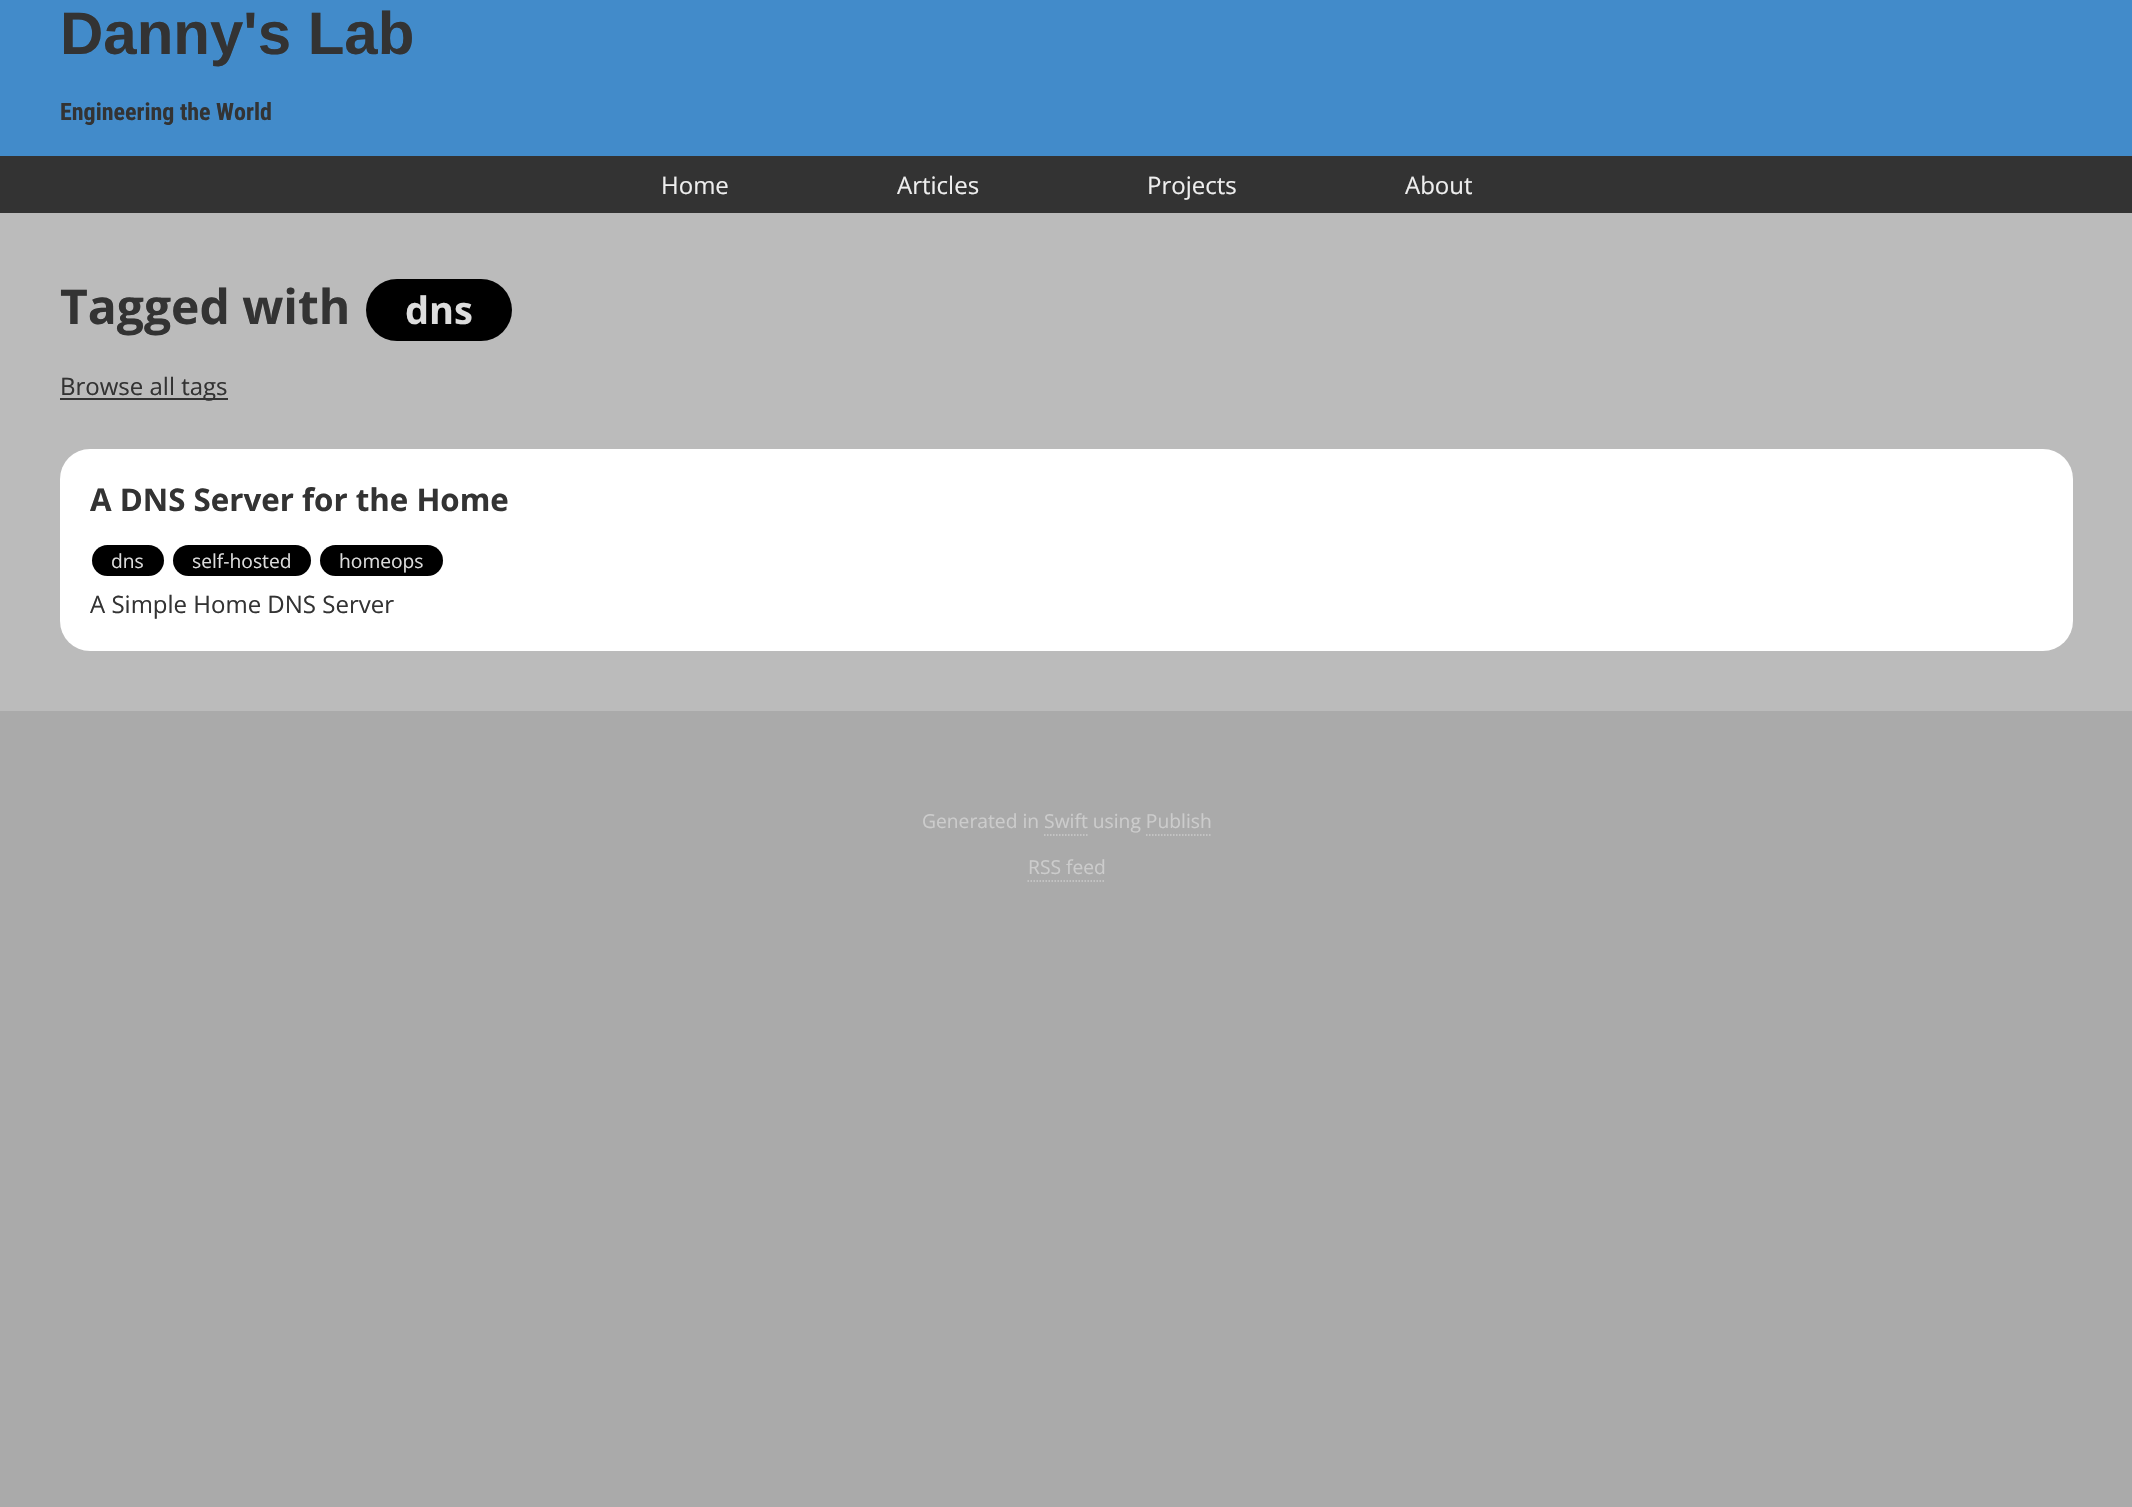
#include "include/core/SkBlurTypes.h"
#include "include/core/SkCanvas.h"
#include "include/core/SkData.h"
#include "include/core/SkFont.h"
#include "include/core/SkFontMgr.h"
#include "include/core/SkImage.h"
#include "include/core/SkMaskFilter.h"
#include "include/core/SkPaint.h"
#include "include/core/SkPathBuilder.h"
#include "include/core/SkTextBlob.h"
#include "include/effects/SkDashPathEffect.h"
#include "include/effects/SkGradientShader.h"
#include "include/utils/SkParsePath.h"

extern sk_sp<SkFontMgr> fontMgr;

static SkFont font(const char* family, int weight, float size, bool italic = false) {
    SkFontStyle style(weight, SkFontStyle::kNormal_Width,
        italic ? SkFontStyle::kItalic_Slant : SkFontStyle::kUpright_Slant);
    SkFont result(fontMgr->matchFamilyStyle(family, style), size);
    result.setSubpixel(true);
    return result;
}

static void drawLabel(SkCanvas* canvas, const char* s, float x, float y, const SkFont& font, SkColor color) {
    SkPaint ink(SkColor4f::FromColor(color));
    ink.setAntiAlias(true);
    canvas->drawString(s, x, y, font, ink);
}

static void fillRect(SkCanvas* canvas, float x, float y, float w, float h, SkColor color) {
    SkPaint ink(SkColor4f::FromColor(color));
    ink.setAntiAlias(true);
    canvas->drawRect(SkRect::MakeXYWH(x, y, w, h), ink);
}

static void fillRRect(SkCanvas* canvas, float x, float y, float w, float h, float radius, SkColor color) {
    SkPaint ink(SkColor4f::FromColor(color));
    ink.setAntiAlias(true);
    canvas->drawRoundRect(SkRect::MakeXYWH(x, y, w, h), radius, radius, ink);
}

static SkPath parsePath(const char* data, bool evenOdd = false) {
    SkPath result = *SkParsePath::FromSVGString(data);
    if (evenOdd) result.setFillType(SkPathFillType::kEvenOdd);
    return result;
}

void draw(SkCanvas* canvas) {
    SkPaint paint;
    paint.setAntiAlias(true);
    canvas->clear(0xFFAAAAAA);
    fillRect(canvas, 0, 0, 2132, 156, 0xFF428BCA);
    SkFont font1 = font("Liberation Sans", 700, 60);
    drawLabel(canvas, "Danny's Lab", 60, 54, font1, 0xFF333333);
    SkFont font2 = font("Roboto Condensed", 700, 24);
    drawLabel(canvas, "Engineering the World", 60, 120, font2, 0xFF333333);
    fillRect(canvas, 0, 156, 2132, 57, 0xFF333333);
    SkFont font3 = font("Open Sans", 400, 24);
    drawLabel(canvas, "Home", 661, 194, font3, 0xFFEEEEEE);
    drawLabel(canvas, "Articles", 897, 194, font3, 0xFFEEEEEE);
    drawLabel(canvas, "Projects", 1147, 194, font3, 0xFFEEEEEE);
    drawLabel(canvas, "About", 1405, 194, font3, 0xFFEEEEEE);
    fillRect(canvas, 0, 213, 2132, 498, 0xFFBBBBBB);
    SkFont font4 = font("Open Sans", 700, 48);
    drawLabel(canvas, "Tagged with", 60, 324, font4, 0xFF333333);
    fillRRect(canvas, 366, 279, 146, 62, 31, 0xFF000000);
    SkFont font5 = font("Open Sans", 700, 38);
    drawLabel(canvas, "dns", 405, 324, font5, 0xFFDDDDDD);
    fillRect(canvas, 60, 398, 168, 2, 0xFF333333);
    drawLabel(canvas, "Browse all tags", 60, 395, font3, 0xFF333333);
    fillRRect(canvas, 60, 449, 2013, 202, 30, 0xFFFFFFFF);
    SkFont font6 = font("Open Sans", 700, 31.25f);
    drawLabel(canvas, "A DNS Server for the Home", 90, 511, font6, 0xFF333333);
    fillRRect(canvas, 92, 545, 72, 31, 15.5f, 0xFF000000);
    SkFont font7 = font("Open Sans", 400, 19.25f);
    drawLabel(canvas, "dns", 111, 568, font7, 0xFFDDDDDD);
    fillRRect(canvas, 173, 545, 138, 31, 15.5f, 0xFF000000);
    drawLabel(canvas, "self-hosted", 192, 568, font7, 0xFFDDDDDD);
    fillRRect(canvas, 320, 545, 123, 31, 15.5f, 0xFF000000);
    drawLabel(canvas, "homeops", 339, 568, font7, 0xFFDDDDDD);
    drawLabel(canvas, "A Simple Home DNS Server", 90, 613, font3, 0xFF333333);
    drawLabel(canvas, "Generated in Swift using Publish", 922, 828, font7, 0xFFCCCCCC);
    paint.setStroke(true);
    paint.setStrokeWidth(1.5f);
    paint.setColor(0xFFCCCCCC);
    paint.setPathEffect(SkDashPathEffect::Make({{1.5f, 1.5f}}, 0));
    canvas->drawPath(parsePath("M1044 835H1087.5"), paint);
    paint.setPathEffect(nullptr);
    paint.setPathEffect(SkDashPathEffect::Make({{1.5f, 1.5f}}, 0));
    canvas->drawPath(parsePath("M1146 835H1210.5"), paint);
    paint.setPathEffect(nullptr);
    drawLabel(canvas, "RSS feed", 1028, 874, font7, 0xFFCCCCCC);
    paint.setPathEffect(SkDashPathEffect::Make({{1.5f, 1.5f}}, 0));
    canvas->drawPath(parsePath("M1027.5 881H1105.5"), paint);
    paint.setPathEffect(nullptr);
}
